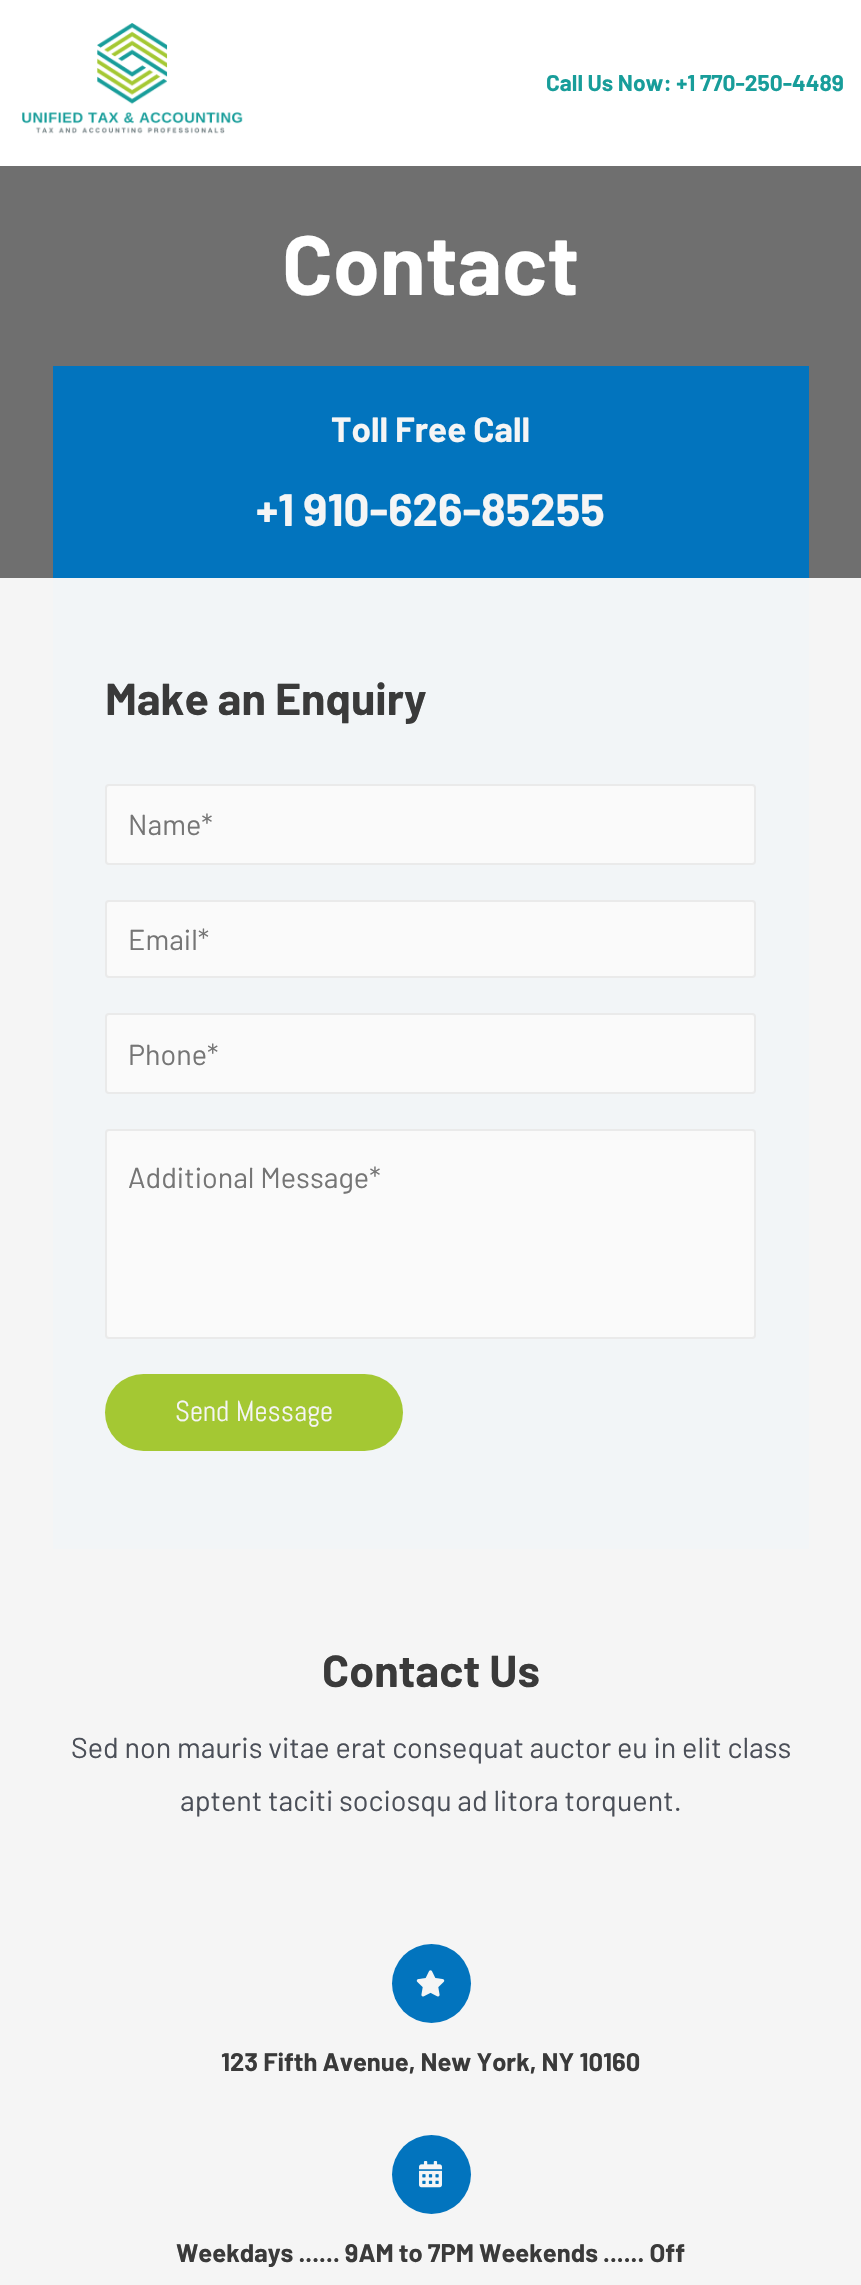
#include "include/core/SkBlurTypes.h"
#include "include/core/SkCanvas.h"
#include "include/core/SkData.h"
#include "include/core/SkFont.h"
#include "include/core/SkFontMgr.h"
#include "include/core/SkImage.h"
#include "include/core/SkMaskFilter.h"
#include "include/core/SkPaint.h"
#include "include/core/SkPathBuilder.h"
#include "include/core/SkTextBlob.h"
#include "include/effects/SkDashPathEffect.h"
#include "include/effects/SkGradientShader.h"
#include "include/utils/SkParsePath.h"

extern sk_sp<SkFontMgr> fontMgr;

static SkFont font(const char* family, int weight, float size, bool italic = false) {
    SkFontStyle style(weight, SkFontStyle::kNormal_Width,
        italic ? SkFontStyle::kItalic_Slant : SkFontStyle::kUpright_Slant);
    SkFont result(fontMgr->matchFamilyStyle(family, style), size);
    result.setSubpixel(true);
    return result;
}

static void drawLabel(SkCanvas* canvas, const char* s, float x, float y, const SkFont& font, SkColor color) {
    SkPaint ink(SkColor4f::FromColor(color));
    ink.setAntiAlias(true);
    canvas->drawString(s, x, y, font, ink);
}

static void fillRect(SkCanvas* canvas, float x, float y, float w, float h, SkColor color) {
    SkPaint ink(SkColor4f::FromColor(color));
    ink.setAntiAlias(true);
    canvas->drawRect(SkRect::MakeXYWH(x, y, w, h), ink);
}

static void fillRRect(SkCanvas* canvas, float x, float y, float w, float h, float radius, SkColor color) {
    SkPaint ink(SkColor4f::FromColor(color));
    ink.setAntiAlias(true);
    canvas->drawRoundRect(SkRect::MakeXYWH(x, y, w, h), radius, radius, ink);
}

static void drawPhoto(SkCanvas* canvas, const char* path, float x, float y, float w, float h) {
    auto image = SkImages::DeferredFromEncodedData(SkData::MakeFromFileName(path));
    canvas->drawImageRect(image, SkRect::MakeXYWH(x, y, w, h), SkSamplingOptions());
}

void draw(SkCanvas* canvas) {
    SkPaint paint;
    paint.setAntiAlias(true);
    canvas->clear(0xFFF5F5F5);
    fillRect(canvas, 0, 0, 861, 166, 0xFFFFFFFF);
    drawPhoto(canvas, "assets/img1.png", 22, 23, 221, 111);
    SkFont font1 = font("Barlow", 700, 22.75f);
    drawLabel(canvas, "Call Us Now: +1 770-250-4489", 546, 91, font1, 0xFF189D9A);
    fillRect(canvas, 0, 166, 861, 412, 0xFF6F6F6F);
    SkFont font2 = font("Barlow", 700, 84);
    drawLabel(canvas, "Contact", 282, 295, font2, 0xFFFFFFFF);
    fillRect(canvas, 53, 366, 756, 212, 0xFF0274BE);
    SkFont font3 = font("Barlow", 700, 35);
    drawLabel(canvas, "Toll Free Call", 331, 442, font3, 0xFFF5F5F5);
    SkFont font4 = font("Barlow", 700, 45.5f);
    drawLabel(canvas, "+1 910-626-85255", 256, 526, font4, 0xFFF5F5F5);
    fillRect(canvas, 53, 578, 756, 971, 0xFFF2F5F7);
    SkFont font5 = font("Barlow", 700, 44.75f);
    drawLabel(canvas, "Make an Enquiry", 105, 715, font5, 0xFF3A3A3A);
    paint.setColor(0xFFFAFAFA);
    canvas->drawRoundRect(SkRect::MakeXYWH(106, 785, 649, 79), 3, 3, paint);
    paint.setStroke(true);
    paint.setStrokeWidth(2);
    paint.setColor(0xFFEAEAEA);
    canvas->drawRoundRect(SkRect::MakeXYWH(106, 785, 649, 79), 3, 3, paint);
    SkFont font6 = font("Barlow", 400, 28.75f);
    drawLabel(canvas, "Name*", 128, 835, font6, 0xFF757575);
    paint.setStroke(false);
    paint.setColor(0xFFFAFAFA);
    canvas->drawRoundRect(SkRect::MakeXYWH(106, 901, 649, 76), 3, 3, paint);
    paint.setStroke(true);
    paint.setColor(0xFFEAEAEA);
    canvas->drawRoundRect(SkRect::MakeXYWH(106, 901, 649, 76), 3, 3, paint);
    drawLabel(canvas, "Email*", 128, 950, font6, 0xFF757575);
    paint.setStroke(false);
    paint.setColor(0xFFFAFAFA);
    canvas->drawRoundRect(SkRect::MakeXYWH(106, 1014, 649, 79), 3, 3, paint);
    paint.setStroke(true);
    paint.setColor(0xFFEAEAEA);
    canvas->drawRoundRect(SkRect::MakeXYWH(106, 1014, 649, 79), 3, 3, paint);
    drawLabel(canvas, "Phone*", 128, 1065, font6, 0xFF757575);
    paint.setStroke(false);
    paint.setColor(0xFFFAFAFA);
    canvas->drawRoundRect(SkRect::MakeXYWH(106, 1130, 649, 208), 3, 3, paint);
    paint.setStroke(true);
    paint.setColor(0xFFEAEAEA);
    canvas->drawRoundRect(SkRect::MakeXYWH(106, 1130, 649, 208), 3, 3, paint);
    drawLabel(canvas, "Additional Message*", 128, 1188, font6, 0xFF757575);
    fillRRect(canvas, 105, 1374, 298, 77, 38.5f, 0xFFA4C833);
    SkFont font7 = font("Abel", 400, 28.75f);
    drawLabel(canvas, "Send Message", 175, 1421, font7, 0xFFF5F5F5);
    drawLabel(canvas, "Contact Us", 322, 1687, font5, 0xFF3A3A3A);
    drawLabel(canvas, "Sed non mauris vitae erat consequat auctor eu in elit class", 71, 1758, font6, 0xFF4B4F58);
    drawLabel(canvas, "aptent taciti sociosqu ad litora torquent.", 180, 1811, font6, 0xFF4B4F58);
    paint.setStroke(false);
    paint.setColor(0xFF0274BE);
    canvas->drawCircle(431.5f, 1983.5f, 39.5f, paint);
    drawPhoto(canvas, "assets/img2.png", 416, 1970, 29, 27);
    SkFont font8 = font("Barlow", 700, 25.5f);
    drawLabel(canvas, "123 Fifth Avenue, New York, NY 10160", 221, 2071, font8, 0xFF3A3A3A);
    canvas->drawCircle(431.5f, 2174.5f, 39.5f, paint);
    drawPhoto(canvas, "assets/img3.png", 419, 2161, 23, 27);
    drawLabel(canvas, "Weekdays ...... 9AM to 7PM Weekends ...... Off", 176, 2262, font8, 0xFF3A3A3A);
}
